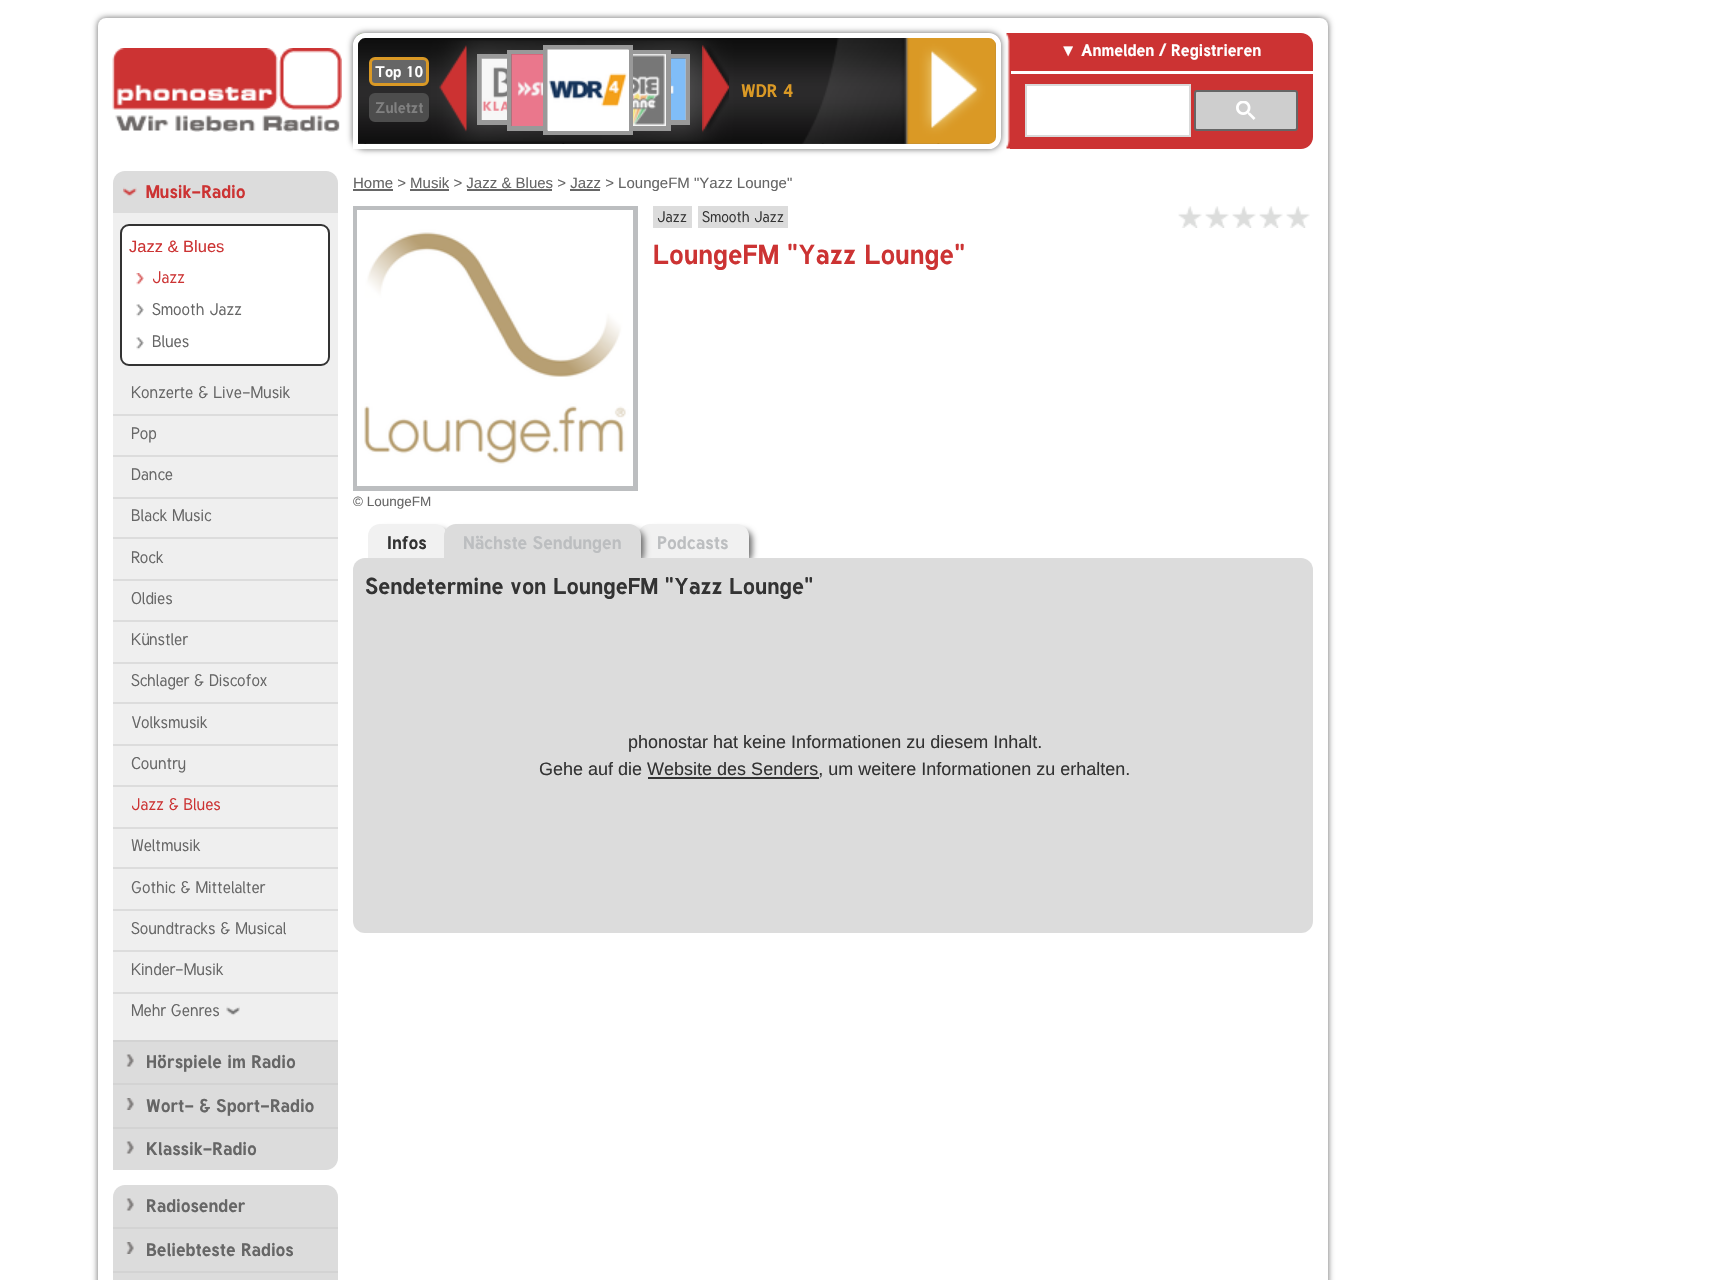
#include "include/core/SkBlurTypes.h"
#include "include/core/SkCanvas.h"
#include "include/core/SkData.h"
#include "include/core/SkFont.h"
#include "include/core/SkFontMgr.h"
#include "include/core/SkImage.h"
#include "include/core/SkMaskFilter.h"
#include "include/core/SkPaint.h"
#include "include/core/SkPathBuilder.h"
#include "include/core/SkTextBlob.h"
#include "include/effects/SkDashPathEffect.h"
#include "include/effects/SkGradientShader.h"
#include "include/utils/SkParsePath.h"

extern sk_sp<SkFontMgr> fontMgr;

static SkFont font(const char* family, int weight, float size, bool italic = false) {
    SkFontStyle style(weight, SkFontStyle::kNormal_Width,
        italic ? SkFontStyle::kItalic_Slant : SkFontStyle::kUpright_Slant);
    SkFont result(fontMgr->matchFamilyStyle(family, style), size);
    result.setSubpixel(true);
    return result;
}

static void drawLabel(SkCanvas* canvas, const char* s, float x, float y, const SkFont& font, SkColor color) {
    SkPaint ink(SkColor4f::FromColor(color));
    ink.setAntiAlias(true);
    canvas->drawString(s, x, y, font, ink);
}

static void fillRect(SkCanvas* canvas, float x, float y, float w, float h, SkColor color) {
    SkPaint ink(SkColor4f::FromColor(color));
    ink.setAntiAlias(true);
    canvas->drawRect(SkRect::MakeXYWH(x, y, w, h), ink);
}

static void fillRRect(SkCanvas* canvas, float x, float y, float w, float h, float radius, SkColor color) {
    SkPaint ink(SkColor4f::FromColor(color));
    ink.setAntiAlias(true);
    canvas->drawRoundRect(SkRect::MakeXYWH(x, y, w, h), radius, radius, ink);
}

static void drawPhoto(SkCanvas* canvas, const char* path, float x, float y, float w, float h) {
    auto image = SkImages::DeferredFromEncodedData(SkData::MakeFromFileName(path));
    canvas->drawImageRect(image, SkRect::MakeXYWH(x, y, w, h), SkSamplingOptions());
}

static SkPath parsePath(const char* data, bool evenOdd = false) {
    SkPath result = *SkParsePath::FromSVGString(data);
    if (evenOdd) result.setFillType(SkPathFillType::kEvenOdd);
    return result;
}

void draw(SkCanvas* canvas) {
    SkPaint paint;
    paint.setAntiAlias(true);
    canvas->clear(0xFFFFFFFF);
    paint.setColor(0xFF666666);
    paint.setMaskFilter(SkMaskFilter::MakeBlur(kNormal_SkBlurStyle, 3));
    canvas->drawRoundRect(SkRect::MakeXYWH(98, 18, 1230, 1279), 8, 8, paint);
    paint.setMaskFilter(nullptr);
    fillRRect(canvas, 98, 18, 1230, 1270, 8, 0xFFFFFFFF);
    drawPhoto(canvas, "assets/img1.png", 112, 48, 230, 84);
    paint.setMaskFilter(SkMaskFilter::MakeBlur(kNormal_SkBlurStyle, 3));
    canvas->drawRoundRect(SkRect::MakeXYWH(353, 33, 648, 116), 12, 12, paint);
    paint.setMaskFilter(nullptr);
    drawPhoto(canvas, "assets/img2.png", 357, 33, 639, 111);
    paint.setStroke(true);
    paint.setStrokeWidth(5);
    paint.setColor(0xFFFFFFFF);
    canvas->drawPath(parsePath("M365 35.5H989C994 35.5 998.5 40 998.5 45V137C998.5 142 994 146.5 989 146.5H355.5V45C355.5 40 360 35.5 365 35.5Z"), paint);
    paint.setStroke(false);
    paint.setColor(0xFF666666);
    canvas->drawRoundRect(SkRect::MakeXYWH(370.5f, 58.5f, 57, 26), 4.5f, 4.5f, paint);
    paint.setStroke(true);
    paint.setStrokeWidth(3);
    paint.setColor(0xFFDA9925);
    canvas->drawRoundRect(SkRect::MakeXYWH(370.5f, 58.5f, 57, 26), 4.5f, 4.5f, paint);
    SkFont font1 = font("Tuffy", 700, 15);
    drawLabel(canvas, "Top 10", 375, 77, font1, 0xFFFFFFFF);
    paint.setStroke(false);
    paint.setColor(0xFF4D4D4D);
    canvas->drawRoundRect(SkRect::MakeXYWH(370.5f, 94.5f, 57, 26), 4.5f, 4.5f, paint);
    paint.setStroke(true);
    canvas->drawRoundRect(SkRect::MakeXYWH(370.5f, 94.5f, 57, 26), 4.5f, 4.5f, paint);
    drawLabel(canvas, "Zuletzt", 375, 113, font1, 0xFF808080);
    drawPhoto(canvas, "assets/img3.png", 439, 45, 28, 87);
    paint.setStrokeWidth(5);
    paint.setColor(0xFF999999);
    canvas->drawRect(SkRect::MakeXYWH(479.5f, 56.5f, 66, 66), paint);
    fillRect(canvas, 512, 55, 31, 71, 0xFFDCDCDC);
    canvas->drawRect(SkRect::MakeXYWH(509.5f, 52.5f, 76, 76), paint);
    fillRect(canvas, 671, 59, 14, 61, 0xFFDCDCDC);
    canvas->drawRect(SkRect::MakeXYWH(622.5f, 56.5f, 65, 66), paint);
    fillRect(canvas, 633, 55, 33, 71, 0xFFDCDCDC);
    canvas->drawRect(SkRect::MakeXYWH(592.5f, 52.5f, 76, 76), paint);
    canvas->drawRect(SkRect::MakeXYWH(545.5f, 47.5f, 85, 85), paint);
    fillRect(canvas, 548, 50, 81, 81, 0xFFFFFFFF);
    drawPhoto(canvas, "assets/img4.png", 547, 49, 82, 82);
    fillRect(canvas, 512, 54, 31, 72, 0x80FFFFFF);
    drawPhoto(canvas, "assets/img5.png", 511, 54, 32, 72);
    fillRect(canvas, 633, 54, 33, 72, 0x80FFFFFF);
    drawPhoto(canvas, "assets/img6.png", 633, 54, 33, 72);
    fillRect(canvas, 482, 59, 25, 61, 0xFFEEEEEE);
    drawPhoto(canvas, "assets/img7.png", 481, 58, 26, 62);
    fillRect(canvas, 671, 59, 15, 61, 0x80FFFFFF);
    drawPhoto(canvas, "assets/img8.png", 671, 58, 15, 62);
    drawPhoto(canvas, "assets/img9.png", 702, 45, 27, 88);
    SkFont font2 = font("Tuffy", 700, 18);
    drawLabel(canvas, "WDR 4", 741, 97, font2, 0xFFDA9925);
    paint.setStroke(false);
    paint.setColor(0xFFCC3333);
    canvas->drawPath(parsePath("M1010 33H1301C1307.5 33 1313 38.5 1313 45V137C1313 143.5 1307.5 149 1301 149H1010Z"), paint);
    fillRect(canvas, 1010, 71, 303, 3, 0xFFFFFFFF);
    drawPhoto(canvas, "assets/img10.png", 1006, 33, 5, 116);
    SkFont font3 = font("Liberation Sans", 400, 16.5f);
    drawLabel(canvas, "▼", 1060, 56, font3, 0xFFFFFFFF);
    SkFont font4 = font("Tuffy", 700, 16.5f);
    drawLabel(canvas, "Anmelden / Registrieren", 1081, 56, font4, 0xFFFFFFFF);
    paint.setColor(0xFFFFFFFF);
    canvas->drawRect(SkRect::MakeXYWH(1026, 85, 164, 51), paint);
    paint.setStroke(true);
    paint.setStrokeWidth(2);
    paint.setColor(0xFFD9D9D9);
    canvas->drawRect(SkRect::MakeXYWH(1026, 85, 164, 51), paint);
    paint.setStroke(false);
    paint.setColor(0xFFCECECE);
    canvas->drawRoundRect(SkRect::MakeXYWH(1195, 91, 102, 39), 2, 2, paint);
    paint.setStroke(true);
    paint.setColor(0xFF666666);
    canvas->drawRoundRect(SkRect::MakeXYWH(1195, 91, 102, 39), 2, 2, paint);
    drawPhoto(canvas, "assets/img11.png", 1236, 101, 20, 19);
    paint.setStroke(false);
    paint.setColor(0xFFDCDCDC);
    canvas->drawPath(parsePath("M125 171H326C332.5 171 338 176.5 338 183V1158C338 1164.5 332.5 1170 326 1170H113V183C113 176.5 118.5 171 125 171Z"), paint);
    fillRect(canvas, 113, 1040, 225, 2, 0xFFD3D3D3);
    drawPhoto(canvas, "assets/img12.png", 123, 187, 14, 10);
    drawLabel(canvas, "Musik-Radio", 146, 198, font2, 0xFFCC3333);
    fillRect(canvas, 113, 213, 225, 827, 0xFFEFEFEF);
    fillRect(canvas, 113, 414, 225, 2, 0xFFDCDCDC);
    paint.setColor(0xFFFFFFFF);
    canvas->drawRoundRect(SkRect::MakeXYWH(121, 225, 208, 140), 8, 8, paint);
    paint.setStroke(true);
    paint.setColor(0xFF333333);
    canvas->drawRoundRect(SkRect::MakeXYWH(121, 225, 208, 140), 8, 8, paint);
    drawLabel(canvas, "Jazz & Blues", 129, 252, font3, 0xFFCC3333);
    drawPhoto(canvas, "assets/img13.png", 136, 273, 8, 12);
    SkFont font5 = font("Tuffy", 400, 16.5f);
    drawLabel(canvas, "Jazz", 152, 283, font5, 0xFFCC3333);
    drawPhoto(canvas, "assets/img14.png", 136, 304, 8, 13);
    drawLabel(canvas, "Smooth Jazz", 152, 315, font5, 0xFF666666);
    drawPhoto(canvas, "assets/img14.png", 136, 337, 8, 13);
    drawLabel(canvas, "Blues", 152, 347, font5, 0xFF666666);
    drawLabel(canvas, "Konzerte & Live-Musik", 131, 398, font5, 0xFF666666);
    fillRect(canvas, 113, 455, 225, 2, 0xFFDCDCDC);
    drawLabel(canvas, "Pop", 131, 439, font5, 0xFF666666);
    fillRect(canvas, 113, 497, 225, 2, 0xFFDCDCDC);
    drawLabel(canvas, "Dance", 131, 480, font5, 0xFF666666);
    fillRect(canvas, 113, 537, 225, 2, 0xFFDCDCDC);
    drawLabel(canvas, "Black Music", 131, 521, font5, 0xFF666666);
    fillRect(canvas, 113, 579, 225, 2, 0xFFDCDCDC);
    drawLabel(canvas, "Rock", 131, 563, font5, 0xFF666666);
    fillRect(canvas, 113, 620, 225, 2, 0xFFDCDCDC);
    drawLabel(canvas, "Oldies", 131, 604, font5, 0xFF666666);
    fillRect(canvas, 113, 662, 225, 2, 0xFFDCDCDC);
    drawLabel(canvas, "Künstler", 131, 645, font5, 0xFF666666);
    fillRect(canvas, 113, 702, 225, 2, 0xFFDCDCDC);
    drawLabel(canvas, "Schlager & Discofox", 131, 686, font5, 0xFF666666);
    fillRect(canvas, 113, 744, 225, 2, 0xFFDCDCDC);
    drawLabel(canvas, "Volksmusik", 131, 728, font5, 0xFF666666);
    fillRect(canvas, 113, 785, 225, 2, 0xFFDCDCDC);
    drawLabel(canvas, "Country", 131, 769, font5, 0xFF666666);
    fillRect(canvas, 113, 827, 225, 2, 0xFFDCDCDC);
    drawLabel(canvas, "Jazz & Blues", 131, 810, font5, 0xFFCC3333);
    fillRect(canvas, 113, 867, 225, 2, 0xFFDCDCDC);
    drawLabel(canvas, "Weltmusik", 131, 851, font5, 0xFF666666);
    fillRect(canvas, 113, 909, 225, 2, 0xFFDCDCDC);
    drawLabel(canvas, "Gothic & Mittelalter", 131, 893, font5, 0xFF666666);
    fillRect(canvas, 113, 950, 225, 2, 0xFFDCDCDC);
    drawLabel(canvas, "Soundtracks & Musical", 131, 934, font5, 0xFF666666);
    fillRect(canvas, 113, 992, 225, 2, 0xFFDCDCDC);
    drawLabel(canvas, "Kinder-Musik", 131, 975, font5, 0xFF666666);
    drawLabel(canvas, "Mehr Genres", 131, 1016, font5, 0xFF666666);
    drawPhoto(canvas, "assets/img15.png", 226, 1006, 14, 10);
    fillRect(canvas, 113, 1083, 225, 2, 0xFFD3D3D3);
    drawPhoto(canvas, "assets/img16.png", 126, 1054, 8, 13);
    drawLabel(canvas, "Hörspiele im Radio", 146, 1068, font2, 0xFF666666);
    fillRect(canvas, 113, 1127, 225, 2, 0xFFD3D3D3);
    drawPhoto(canvas, "assets/img17.png", 126, 1098, 8, 12);
    drawLabel(canvas, "Wort- & Sport-Radio", 146, 1112, font2, 0xFF666666);
    drawPhoto(canvas, "assets/img16.png", 126, 1141, 8, 13);
    drawLabel(canvas, "Klassik-Radio", 146, 1155, font2, 0xFF666666);
    paint.setStroke(false);
    paint.setColor(0xFFDCDCDC);
    canvas->drawPath(parsePath("M125 1185H326C332.5 1185 338 1190.5 338 1197V1280C338 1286.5 332.5 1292 326 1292H113V1197C113 1190.5 118.5 1185 125 1185Z"), paint);
    fillRect(canvas, 113, 1227, 225, 2, 0xFFD3D3D3);
    drawPhoto(canvas, "assets/img16.png", 126, 1198, 8, 13);
    drawLabel(canvas, "Radiosender", 146, 1212, font2, 0xFF666666);
    fillRect(canvas, 113, 1271, 225, 2, 0xFFD3D3D3);
    drawPhoto(canvas, "assets/img17.png", 126, 1242, 8, 12);
    drawLabel(canvas, "Beliebteste Radios", 146, 1256, font2, 0xFF666666);
    fillRect(canvas, 353, 189, 40, 2, 0xFF666666);
    SkFont font6 = font("Liberation Sans", 400, 15);
    drawLabel(canvas, "Home > Musik > Jazz & Blues > Jazz > LoungeFM \"Yazz Lounge\"", 353, 188, font6, 0xFF666666);
    fillRect(canvas, 410, 189, 39, 2, 0xFF666666);
    fillRect(canvas, 467, 189, 85, 2, 0xFF666666);
    fillRect(canvas, 570, 189, 30, 2, 0xFF666666);
    fillRect(canvas, 653, 206, 39, 22, 0xFFDCDCDC);
    SkFont font7 = font("Tuffy", 400, 15);
    drawLabel(canvas, "Jazz", 657, 222, font7, 0xFF333333);
    fillRect(canvas, 698, 206, 90, 22, 0xFFDCDCDC);
    drawLabel(canvas, "Smooth Jazz", 702, 222, font7, 0xFF333333);
    SkFont font8 = font("Tuffy", 700, 27);
    drawLabel(canvas, "LoungeFM \"Yazz Lounge\"", 653, 264, font8, 0xFFCC3333);
    drawPhoto(canvas, "assets/img18.png", 1178, 206, 24, 22);
    drawPhoto(canvas, "assets/img18.png", 1205, 206, 24, 22);
    drawPhoto(canvas, "assets/img19.png", 1232, 206, 24, 22);
    drawPhoto(canvas, "assets/img19.png", 1259, 206, 24, 22);
    drawPhoto(canvas, "assets/img18.png", 1286, 206, 24, 22);
    paint.setStroke(true);
    paint.setStrokeWidth(5);
    paint.setColor(0xFFBCBEC0);
    canvas->drawRect(SkRect::MakeXYWH(355.5f, 208.5f, 280, 280), paint);
    drawPhoto(canvas, "assets/img20.png", 357, 210, 276, 276);
    SkFont font9 = font("Liberation Sans", 400, 13.5f);
    drawLabel(canvas, "© LoungeFM", 353, 506, font9, 0xFF666666);
    fillRRect(canvas, 353, 558, 960, 375, 12, 0xFFDCDCDC);
    canvas->save();
    canvas->clipRect(SkRect::MakeXYWH(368, 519, 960, 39));
    paint.setStroke(false);
    paint.setColor(0xFF666666);
    paint.setMaskFilter(SkMaskFilter::MakeBlur(kNormal_SkBlurStyle, 3));
    canvas->drawRoundRect(SkRect::MakeXYWH(377, 530, 73, 33), 9, 9, paint);
    paint.setMaskFilter(nullptr);
    canvas->restore();
    paint.setColor(0xFFF1F1F1);
    canvas->drawPath(parsePath("M380 524H435C441.5 524 447 529.5 447 536V558H368V536C368 529.5 373.5 524 380 524Z"), paint);
    drawLabel(canvas, "Infos", 387, 549, font2, 0xFF333333);
    canvas->save();
    canvas->clipRect(SkRect::MakeXYWH(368, 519, 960, 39));
    paint.setColor(0xFF666666);
    paint.setMaskFilter(SkMaskFilter::MakeBlur(kNormal_SkBlurStyle, 3));
    canvas->drawRoundRect(SkRect::MakeXYWH(647, 530, 105, 33), 9, 9, paint);
    paint.setMaskFilter(nullptr);
    canvas->restore();
    paint.setColor(0xFFF1F1F1);
    canvas->drawPath(parsePath("M650 524H737C743.5 524 749 529.5 749 536V558H638V536C638 529.5 643.5 524 650 524Z"), paint);
    canvas->save();
    canvas->clipRect(SkRect::MakeXYWH(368, 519, 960, 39));
    paint.setColor(0xFF666666);
    paint.setMaskFilter(SkMaskFilter::MakeBlur(kNormal_SkBlurStyle, 3));
    canvas->drawRoundRect(SkRect::MakeXYWH(453, 530, 191, 33), 9, 9, paint);
    paint.setMaskFilter(nullptr);
    canvas->restore();
    paint.setColor(0xFFDCDCDC);
    canvas->drawPath(parsePath("M456 524H629C635.5 524 641 529.5 641 536V558H444V536C444 529.5 449.5 524 456 524Z"), paint);
    drawLabel(canvas, "Nächste Sendungen", 463, 549, font2, 0xFFBCBEC0);
    drawLabel(canvas, "Podcasts", 657, 549, font2, 0xFFBCBEC0);
    SkFont font10 = font("Tuffy", 700, 22.5f);
    drawLabel(canvas, "Sendetermine von LoungeFM \"Yazz Lounge\"", 365, 594, font10, 0xFF333333);
    SkFont font11 = font("Liberation Sans", 400, 18);
    drawLabel(canvas, "phonostar hat keine Informationen zu diesem Inhalt.", 628, 748, font11, 0xFF333333);
    drawLabel(canvas, "Gehe auf die Website des Senders, um weitere Informationen zu erhalten.", 539, 775, font11, 0xFF333333);
    fillRect(canvas, 648, 777, 171, 2, 0xFF333333);
}
